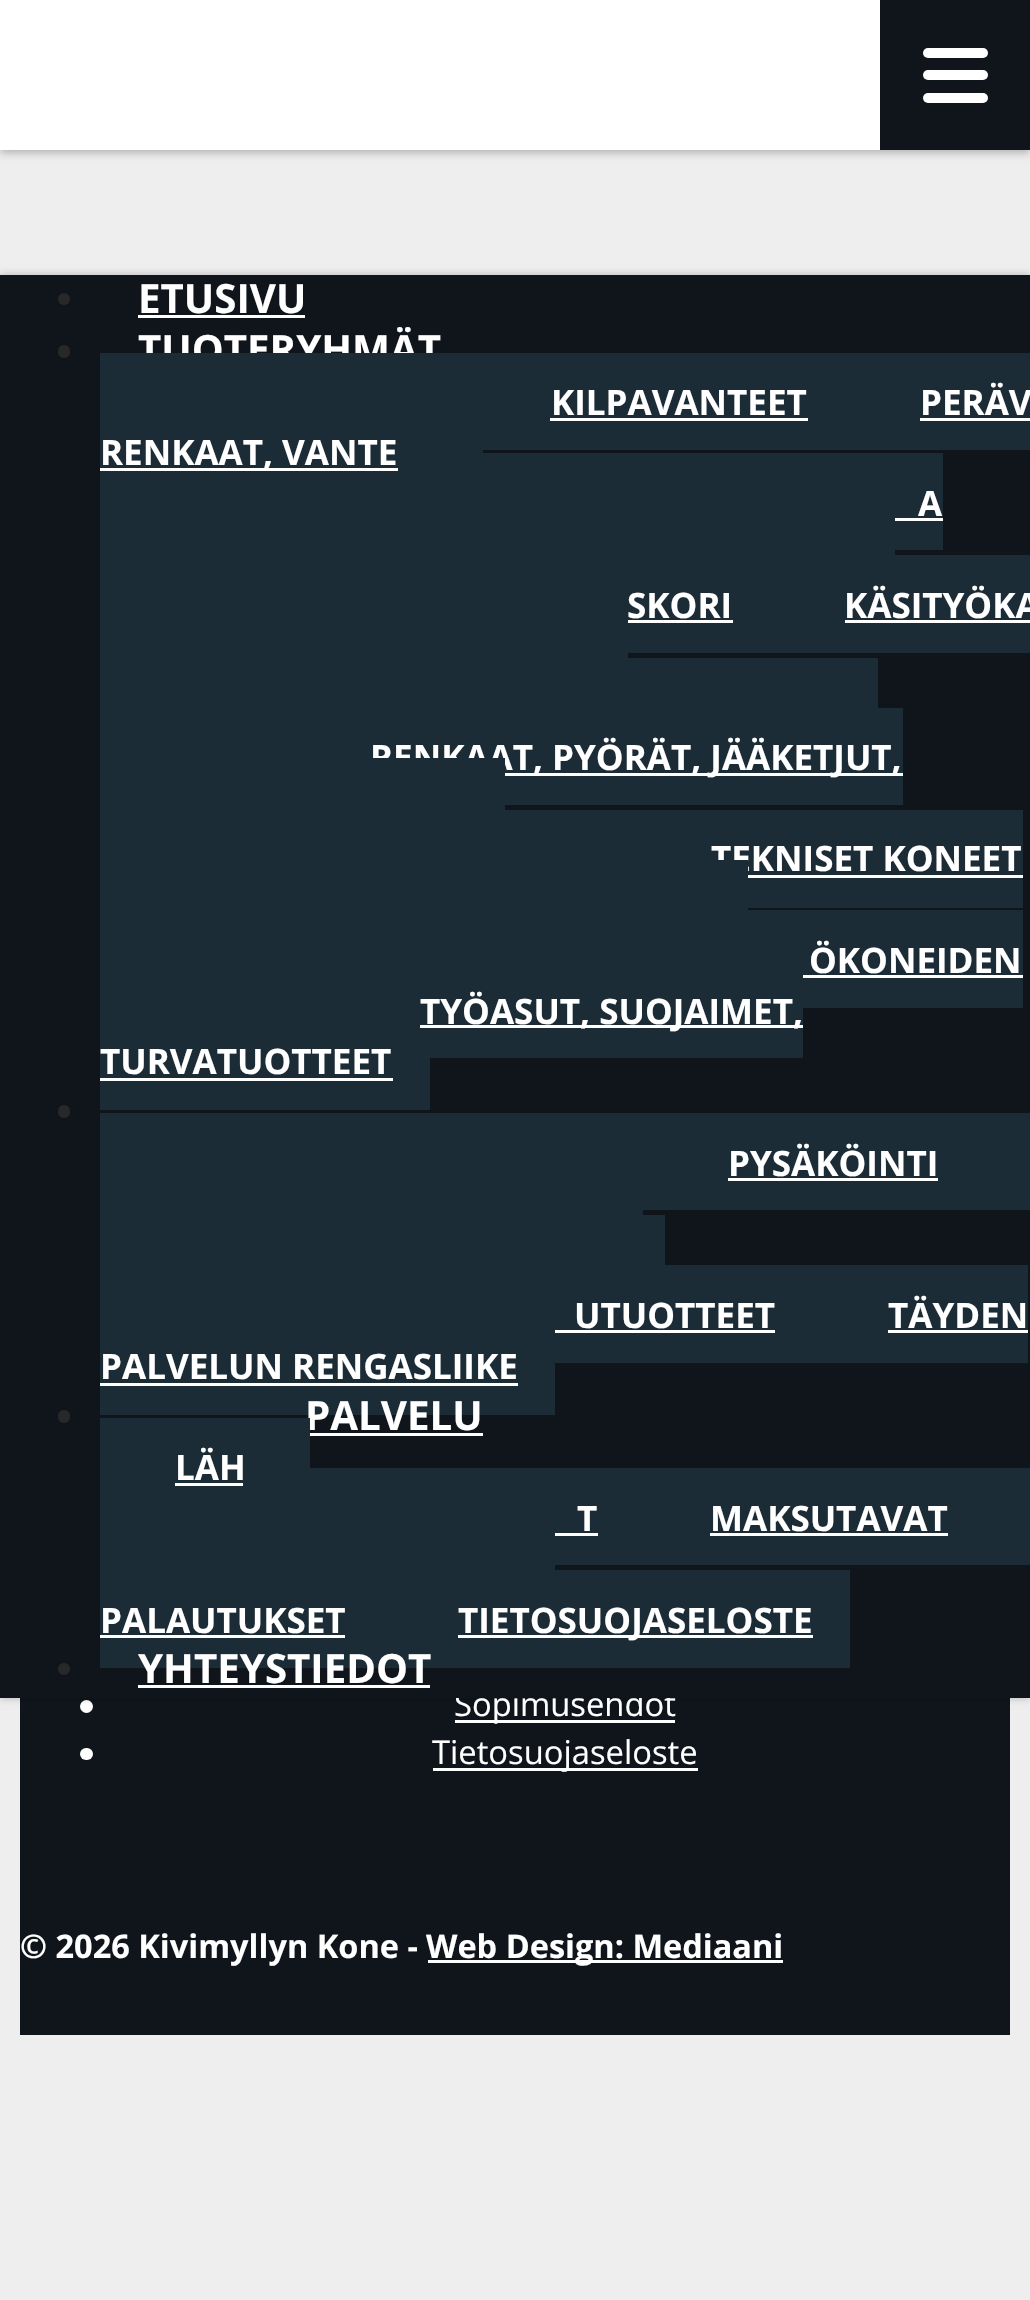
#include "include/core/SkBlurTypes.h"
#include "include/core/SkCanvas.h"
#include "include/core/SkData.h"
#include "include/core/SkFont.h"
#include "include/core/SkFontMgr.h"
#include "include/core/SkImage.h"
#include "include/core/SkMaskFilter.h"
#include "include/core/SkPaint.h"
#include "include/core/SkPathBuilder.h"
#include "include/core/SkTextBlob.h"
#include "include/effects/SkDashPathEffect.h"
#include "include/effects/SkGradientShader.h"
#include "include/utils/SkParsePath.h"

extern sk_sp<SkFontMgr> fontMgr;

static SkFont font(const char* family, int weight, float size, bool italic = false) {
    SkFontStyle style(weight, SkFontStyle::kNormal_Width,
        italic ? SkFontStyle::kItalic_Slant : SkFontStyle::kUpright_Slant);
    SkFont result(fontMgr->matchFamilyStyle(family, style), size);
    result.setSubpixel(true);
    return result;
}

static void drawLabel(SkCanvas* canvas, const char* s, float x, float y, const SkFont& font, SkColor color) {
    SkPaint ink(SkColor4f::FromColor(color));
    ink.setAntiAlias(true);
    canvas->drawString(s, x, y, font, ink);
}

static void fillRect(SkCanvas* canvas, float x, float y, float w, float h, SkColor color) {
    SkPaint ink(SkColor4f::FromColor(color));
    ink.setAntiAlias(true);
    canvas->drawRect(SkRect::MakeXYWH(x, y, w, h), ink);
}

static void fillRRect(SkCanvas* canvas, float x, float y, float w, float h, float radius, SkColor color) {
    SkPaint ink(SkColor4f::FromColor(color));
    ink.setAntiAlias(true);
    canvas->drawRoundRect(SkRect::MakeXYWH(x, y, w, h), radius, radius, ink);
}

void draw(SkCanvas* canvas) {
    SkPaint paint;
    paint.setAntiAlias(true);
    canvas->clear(0xFFEEEEEE);
    paint.setColor(0x40000000);
    paint.setMaskFilter(SkMaskFilter::MakeBlur(kNormal_SkBlurStyle, 4));
    canvas->drawRect(SkRect::MakeXYWH(0, 3, 1030, 150), paint);
    paint.setMaskFilter(nullptr);
    fillRect(canvas, 0, 0, 880, 150, 0xFFFFFFFF);
    fillRect(canvas, 880, 0, 150, 150, 0xFF10151C);
    fillRRect(canvas, 923, 70, 65, 10, 5, 0xFFFFFFFF);
    fillRRect(canvas, 923, 48, 65, 10, 5, 0xFFFFFFFF);
    fillRRect(canvas, 923, 93, 65, 10, 5, 0xFFFFFFFF);
    fillRect(canvas, 20, 1698, 990, 337, 0xFF10151C);
    paint.setColor(0xFFFFFFFF);
    canvas->drawCircle(86.5f, 1706.5f, 6.5f, paint);
    paint.setColor(0x40000000);
    paint.setMaskFilter(SkMaskFilter::MakeBlur(kNormal_SkBlurStyle, 4));
    canvas->drawRect(SkRect::MakeXYWH(0, 275, 1030, 1423), paint);
    paint.setMaskFilter(nullptr);
    fillRect(canvas, 455, 1720, 220, 3, 0xFFFFFFFF);
    SkFont font1 = font("Open Sans", 400, 32.75f);
    drawLabel(canvas, "Sopimusehdot", 454, 1716, font1, 0xFFFFFFFF);
    fillRect(canvas, 0, 275, 1030, 1423, 0xFF10151C);
    paint.setColor(0xFF282828);
    canvas->drawCircle(64, 299, 6, paint);
    SkFont font2 = font("Open Sans", 700, 40.25f);
    drawLabel(canvas, "ETUSIVU", 138, 313, font2, 0xFFFFFFFF);
    fillRect(canvas, 138, 315, 167, 3, 0xFFFFFFFF);
    fillRRect(canvas, 58, 345, 12, 13, 6, 0xFF282828);
    drawLabel(canvas, "TUOTERYHMÄT", 138, 364, font2, 0xFFFFFFFF);
    fillRect(canvas, 100, 353, 375, 50, 0xFF1C2C37);
    fillRect(canvas, 475, 353, 555, 97, 0xFF1C2C37);
    SkFont font3 = font("Open Sans", 700, 35);
    drawLabel(canvas, "KILPAVANTEET", 551, 415, font3, 0xFFFFFFFF);
    fillRect(canvas, 550, 418, 258, 3, 0xFFFFFFFF);
    drawLabel(canvas, "PERÄV", 920, 415, font3, 0xFFFFFFFF);
    fillRect(canvas, 920, 418, 110, 3, 0xFFFFFFFF);
    fillRect(canvas, 100, 403, 383, 50, 0xFF1C2C37);
    fillRect(canvas, 100, 453, 298, 52, 0xFF1C2C37);
    fillRect(canvas, 100, 468, 298, 3, 0xFFFFFFFF);
    drawLabel(canvas, "RENKAAT, VANTE", 100, 465, font3, 0xFFFFFFFF);
    fillRect(canvas, 398, 453, 545, 97, 0xFF1C2C37);
    drawLabel(canvas, "A", 918, 516, font3, 0xFFFFFFFF);
    fillRect(canvas, 100, 505, 573, 50, 0xFF1C2C37);
    fillRect(canvas, 895, 518, 48, 3, 0xFFFFFFFF);
    fillRect(canvas, 673, 550, 222, 5, 0xFF1C2C37);
    fillRect(canvas, 100, 555, 318, 50, 0xFF1C2C37);
    fillRect(canvas, 418, 555, 612, 98, 0xFF1C2C37);
    drawLabel(canvas, "SKORI", 627, 618, font3, 0xFFFFFFFF);
    fillRect(canvas, 628, 620, 105, 3, 0xFFFFFFFF);
    drawLabel(canvas, "KÄSITYÖKA", 844, 618, font3, 0xFFFFFFFF);
    fillRect(canvas, 845, 620, 185, 3, 0xFFFFFFFF);
    fillRect(canvas, 100, 605, 528, 53, 0xFF1C2C37);
    fillRect(canvas, 100, 658, 778, 50, 0xFF1C2C37);
    fillRect(canvas, 100, 708, 195, 50, 0xFF1C2C37);
    fillRect(canvas, 295, 708, 608, 97, 0xFF1C2C37);
    fillRect(canvas, 505, 773, 398, 3, 0xFFFFFFFF);
    drawLabel(canvas, "RENKAAT, PYÖRÄT, JÄÄKETJUT,", 370, 770, font3, 0xFFFFFFFF);
    fillRect(canvas, 100, 758, 235, 52, 0xFF1C2C37);
    fillRect(canvas, 335, 758, 170, 52, 0xFF1C2C37);
    fillRect(canvas, 100, 810, 535, 50, 0xFF1C2C37);
    fillRect(canvas, 635, 810, 388, 98, 0xFF1C2C37);
    drawLabel(canvas, "TEKNISET KONEET", 711, 871, font3, 0xFFFFFFFF);
    fillRect(canvas, 100, 860, 238, 50, 0xFF1C2C37);
    fillRect(canvas, 748, 875, 275, 3, 0xFFFFFFFF);
    fillRect(canvas, 338, 860, 410, 50, 0xFF1C2C37);
    fillRect(canvas, 100, 910, 270, 50, 0xFF1C2C37);
    fillRect(canvas, 370, 910, 653, 98, 0xFF1C2C37);
    drawLabel(canvas, "ÖKONEIDEN", 809, 973, font3, 0xFFFFFFFF);
    fillRect(canvas, 100, 960, 245, 53, 0xFF1C2C37);
    fillRect(canvas, 803, 975, 220, 3, 0xFFFFFFFF);
    fillRect(canvas, 345, 960, 458, 98, 0xFF1C2C37);
    fillRect(canvas, 100, 1013, 330, 97, 0xFF1C2C37);
    fillRect(canvas, 420, 1025, 383, 3, 0xFFFFFFFF);
    drawLabel(canvas, "TYÖASUT, SUOJAIMET,", 420, 1024, font3, 0xFFFFFFFF);
    drawLabel(canvas, "TURVATUOTTEET", 100, 1074, font3, 0xFFFFFFFF);
    fillRect(canvas, 100, 1078, 293, 3, 0xFFFFFFFF);
    fillRRect(canvas, 58, 1105, 12, 13, 6, 0xFF282828);
    fillRect(canvas, 100, 1113, 200, 52, 0xFF1C2C37);
    fillRect(canvas, 300, 1113, 730, 97, 0xFF1C2C37);
    drawLabel(canvas, "PYSÄKÖINTI", 728, 1176, font3, 0xFFFFFFFF);
    fillRect(canvas, 728, 1178, 210, 3, 0xFFFFFFFF);
    fillRect(canvas, 100, 1165, 218, 50, 0xFF1C2C37);
    fillRect(canvas, 318, 1210, 325, 5, 0xFF1C2C37);
    fillRect(canvas, 100, 1215, 565, 50, 0xFF1C2C37);
    fillRect(canvas, 100, 1265, 208, 53, 0xFF1C2C37);
    fillRect(canvas, 308, 1265, 720, 98, 0xFF1C2C37);
    drawLabel(canvas, "UTUOTTEET", 574, 1328, font3, 0xFFFFFFFF);
    fillRect(canvas, 555, 1330, 220, 3, 0xFFFFFFFF);
    drawLabel(canvas, "TÄYDEN", 888, 1328, font3, 0xFFFFFFFF);
    fillRect(canvas, 888, 1330, 140, 3, 0xFFFFFFFF);
    fillRect(canvas, 100, 1318, 455, 97, 0xFF1C2C37);
    drawLabel(canvas, "PALVELUN RENGASLIIKE", 100, 1379, font3, 0xFFFFFFFF);
    fillRect(canvas, 100, 1383, 418, 3, 0xFFFFFFFF);
    fillRRect(canvas, 58, 1410, 12, 13, 6, 0xFF282828);
    drawLabel(canvas, "PALVELU", 305, 1430, font2, 0xFFFFFFFF);
    fillRect(canvas, 310, 1433, 173, 3, 0xFFFFFFFF);
    fillRect(canvas, 100, 1418, 210, 50, 0xFF1C2C37);
    fillRect(canvas, 100, 1468, 143, 52, 0xFF1C2C37);
    drawLabel(canvas, "LÄH", 175, 1480, font3, 0xFFFFFFFF);
    fillRect(canvas, 175, 1483, 68, 3, 0xFFFFFFFF);
    fillRect(canvas, 243, 1468, 787, 97, 0xFF1C2C37);
    fillRect(canvas, 100, 1520, 215, 50, 0xFF1C2C37);
    drawLabel(canvas, "T", 577, 1531, font3, 0xFFFFFFFF);
    fillRect(canvas, 555, 1533, 43, 3, 0xFFFFFFFF);
    drawLabel(canvas, "MAKSUTAVAT", 710, 1531, font3, 0xFFFFFFFF);
    fillRect(canvas, 710, 1533, 238, 3, 0xFFFFFFFF);
    fillRect(canvas, 100, 1570, 750, 98, 0xFF1C2C37);
    drawLabel(canvas, "PALAUTUKSET", 100, 1633, font3, 0xFFFFFFFF);
    fillRect(canvas, 315, 1565, 240, 5, 0xFF1C2C37);
    fillRect(canvas, 100, 1635, 245, 3, 0xFFFFFFFF);
    fillRect(canvas, 458, 1635, 355, 3, 0xFFFFFFFF);
    drawLabel(canvas, "TIETOSUOJASELOSTE", 458, 1633, font3, 0xFFFFFFFF);
    canvas->drawCircle(64, 1669, 6, paint);
    drawLabel(canvas, "YHTEYSTIEDOT", 138, 1683, font2, 0xFFFFFFFF);
    fillRect(canvas, 138, 1685, 292, 3, 0xFFFFFFFF);
    fillRRect(canvas, 80, 1748, 13, 12, 6, 0xFFFFFFFF);
    fillRect(canvas, 433, 1768, 265, 3, 0xFFFFFFFF);
    drawLabel(canvas, "Tietosuojaseloste", 432, 1764, font1, 0xFFFFFFFF);
    SkFont font4 = font("Open Sans", 700, 32.5f);
    drawLabel(canvas, "© 2026 Kivimyllyn Kone -", 20, 1958, font4, 0xFFFFFFFF);
    fillRect(canvas, 428, 1960, 355, 3, 0xFFFFFFFF);
    drawLabel(canvas, "Web Design: Mediaani", 426, 1958, font4, 0xFFFFFFFF);
}
